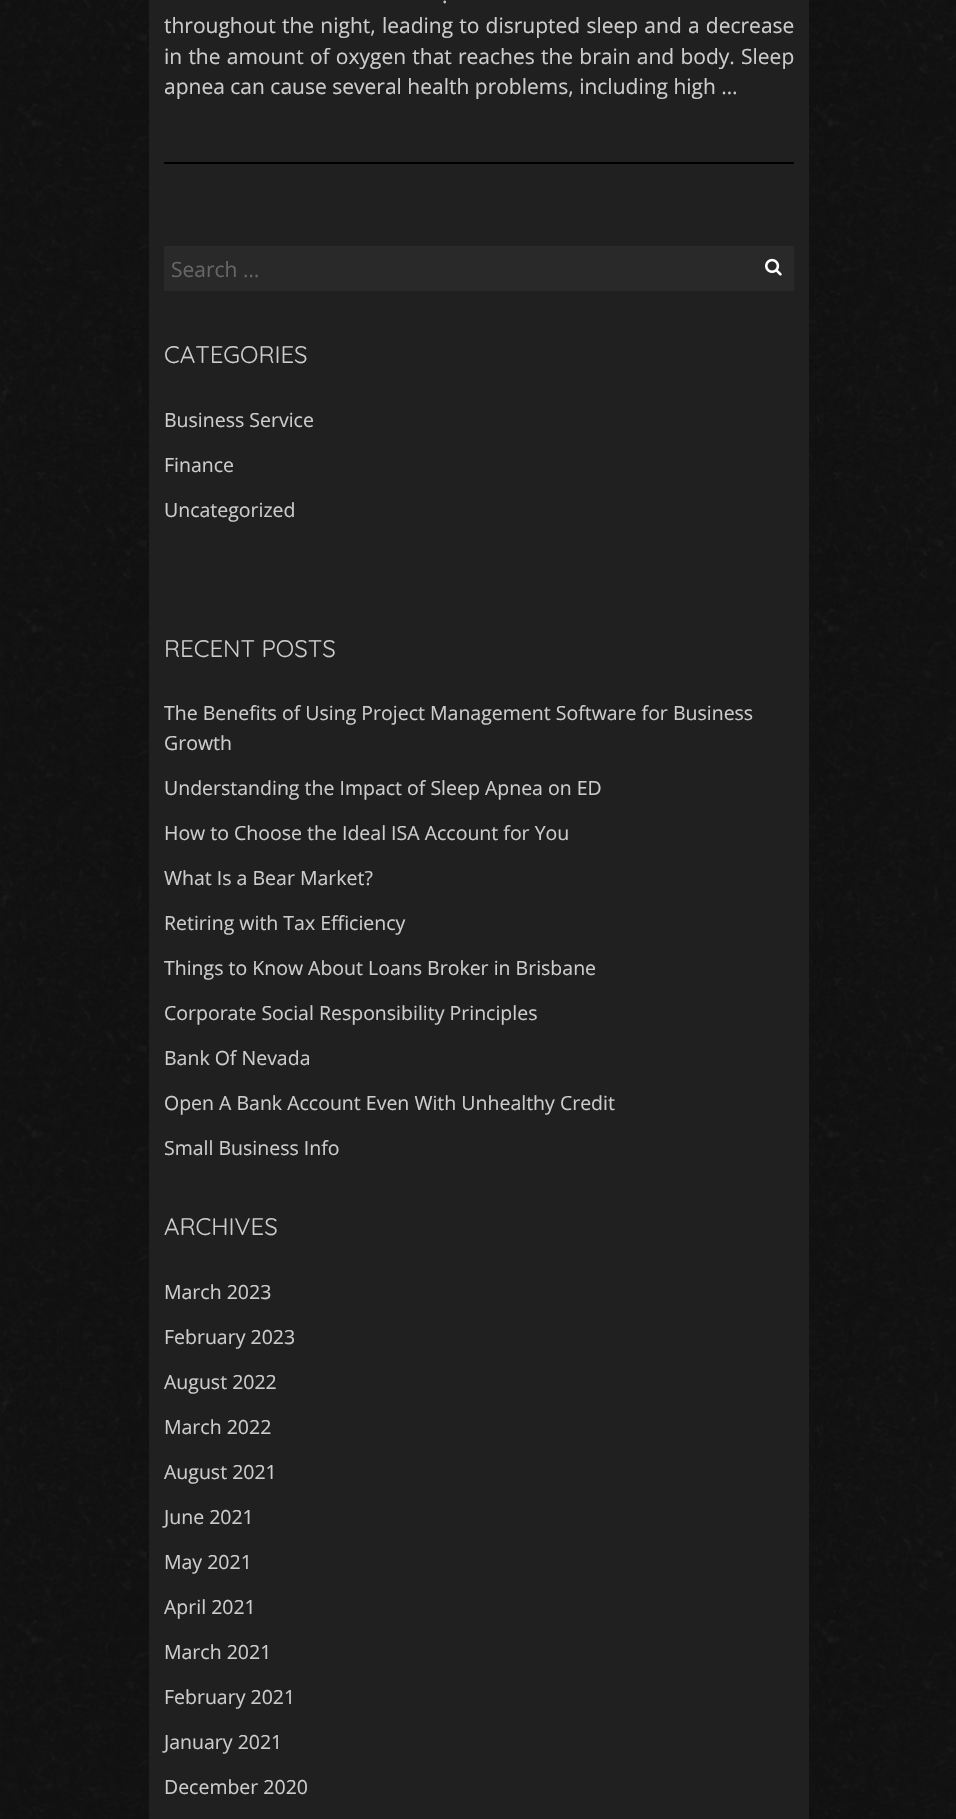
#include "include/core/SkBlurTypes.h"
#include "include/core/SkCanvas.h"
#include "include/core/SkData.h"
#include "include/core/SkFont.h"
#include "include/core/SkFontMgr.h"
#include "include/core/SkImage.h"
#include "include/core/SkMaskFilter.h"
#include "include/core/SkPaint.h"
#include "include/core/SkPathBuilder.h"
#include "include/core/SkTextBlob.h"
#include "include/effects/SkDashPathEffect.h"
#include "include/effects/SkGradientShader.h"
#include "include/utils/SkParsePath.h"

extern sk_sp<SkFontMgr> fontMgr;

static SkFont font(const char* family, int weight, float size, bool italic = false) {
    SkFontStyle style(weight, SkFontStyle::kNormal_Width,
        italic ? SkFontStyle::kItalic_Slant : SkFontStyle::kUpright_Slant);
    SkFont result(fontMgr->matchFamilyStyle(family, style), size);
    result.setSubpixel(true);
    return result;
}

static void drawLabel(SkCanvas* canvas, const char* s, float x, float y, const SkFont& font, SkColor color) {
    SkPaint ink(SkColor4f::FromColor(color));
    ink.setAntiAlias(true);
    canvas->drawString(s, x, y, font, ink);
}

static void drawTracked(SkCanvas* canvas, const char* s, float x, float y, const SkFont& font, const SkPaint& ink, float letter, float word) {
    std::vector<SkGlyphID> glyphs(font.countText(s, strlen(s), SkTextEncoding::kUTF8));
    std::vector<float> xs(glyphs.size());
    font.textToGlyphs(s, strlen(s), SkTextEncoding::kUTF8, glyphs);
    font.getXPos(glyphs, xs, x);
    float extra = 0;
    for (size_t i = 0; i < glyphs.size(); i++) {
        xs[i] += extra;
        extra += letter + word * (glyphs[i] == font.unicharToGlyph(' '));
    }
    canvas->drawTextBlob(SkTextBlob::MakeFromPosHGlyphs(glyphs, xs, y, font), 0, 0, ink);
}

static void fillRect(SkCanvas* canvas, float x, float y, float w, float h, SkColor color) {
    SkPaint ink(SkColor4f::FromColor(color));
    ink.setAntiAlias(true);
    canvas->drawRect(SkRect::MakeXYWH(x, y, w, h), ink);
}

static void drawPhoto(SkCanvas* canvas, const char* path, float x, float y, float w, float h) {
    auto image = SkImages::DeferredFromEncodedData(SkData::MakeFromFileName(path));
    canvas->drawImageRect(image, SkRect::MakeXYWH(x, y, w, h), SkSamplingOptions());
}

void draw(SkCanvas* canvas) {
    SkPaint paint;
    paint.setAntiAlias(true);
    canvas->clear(0xFFFFFFFF);
    drawPhoto(canvas, "assets/img1.png", 0, 0, 956, 1819);
    fillRect(canvas, 149, 0, 660, 1819, 0xFF202020);
    SkFont font1 = font("Open Sans", 400, 21);
    paint.setColor(0xFFCCCCCC);
    drawTracked(canvas, ".", 442, 3, font1, paint, 0, 7);
    drawTracked(canvas, "throughout the night, leading to disrupted sleep and a decrease", 164, 33, font1, paint, 0, 0.75f);
    drawTracked(canvas, "in the amount of oxygen that reaches the brain and body. Sleep", 164, 64, font1, paint, 0, 0.75f);
    drawLabel(canvas, "apnea can cause several health problems, including high …", 164, 94, font1, 0xFFCCCCCC);
    fillRect(canvas, 164, 162, 630, 2, 0xFF000000);
    fillRect(canvas, 164, 246, 630, 45, 0xFF292929);
    drawLabel(canvas, "Search …", 171, 277, font1, 0xFF666666);
    drawPhoto(canvas, "assets/img2.png", 765, 258, 17, 18);
    SkFont font2 = font("Quicksand", 400, 24);
    drawLabel(canvas, "CATEGORIES", 164, 363, font2, 0xFFCCCCCC);
    SkFont font3 = font("Open Sans", 400, 19.5f);
    drawLabel(canvas, "Business Service", 164, 427, font3, 0xFFCCCCCC);
    drawLabel(canvas, "Finance", 164, 472, font3, 0xFFCCCCCC);
    drawLabel(canvas, "Uncategorized", 164, 517, font3, 0xFFCCCCCC);
    drawLabel(canvas, "RECENT POSTS", 164, 657, font2, 0xFFCCCCCC);
    drawLabel(canvas, "The Benefits of Using Project Management Software for Business", 164, 720, font3, 0xFFCCCCCC);
    drawLabel(canvas, "Growth", 164, 750, font3, 0xFFCCCCCC);
    drawLabel(canvas, "Understanding the Impact of Sleep Apnea on ED", 164, 795, font3, 0xFFCCCCCC);
    drawLabel(canvas, "How to Choose the Ideal ISA Account for You", 164, 840, font3, 0xFFCCCCCC);
    drawLabel(canvas, "What Is a Bear Market?", 164, 885, font3, 0xFFCCCCCC);
    drawLabel(canvas, "Retiring with Tax Efficiency", 164, 930, font3, 0xFFCCCCCC);
    drawLabel(canvas, "Things to Know About Loans Broker in Brisbane", 164, 975, font3, 0xFFCCCCCC);
    drawLabel(canvas, "Corporate Social Responsibility Principles", 164, 1020, font3, 0xFFCCCCCC);
    drawLabel(canvas, "Bank Of Nevada", 164, 1065, font3, 0xFFCCCCCC);
    drawLabel(canvas, "Open A Bank Account Even With Unhealthy Credit", 164, 1110, font3, 0xFFCCCCCC);
    drawLabel(canvas, "Small Business Info", 164, 1155, font3, 0xFFCCCCCC);
    drawLabel(canvas, "ARCHIVES", 164, 1235, font2, 0xFFCCCCCC);
    drawLabel(canvas, "March 2023", 164, 1299, font3, 0xFFCCCCCC);
    drawLabel(canvas, "February 2023", 164, 1344, font3, 0xFFCCCCCC);
    drawLabel(canvas, "August 2022", 164, 1389, font3, 0xFFCCCCCC);
    drawLabel(canvas, "March 2022", 164, 1434, font3, 0xFFCCCCCC);
    drawLabel(canvas, "August 2021", 164, 1479, font3, 0xFFCCCCCC);
    drawLabel(canvas, "June 2021", 164, 1524, font3, 0xFFCCCCCC);
    drawLabel(canvas, "May 2021", 164, 1569, font3, 0xFFCCCCCC);
    drawLabel(canvas, "April 2021", 164, 1614, font3, 0xFFCCCCCC);
    drawLabel(canvas, "March 2021", 164, 1659, font3, 0xFFCCCCCC);
    drawLabel(canvas, "February 2021", 164, 1704, font3, 0xFFCCCCCC);
    drawLabel(canvas, "January 2021", 164, 1749, font3, 0xFFCCCCCC);
    drawLabel(canvas, "December 2020", 164, 1794, font3, 0xFFCCCCCC);
}
